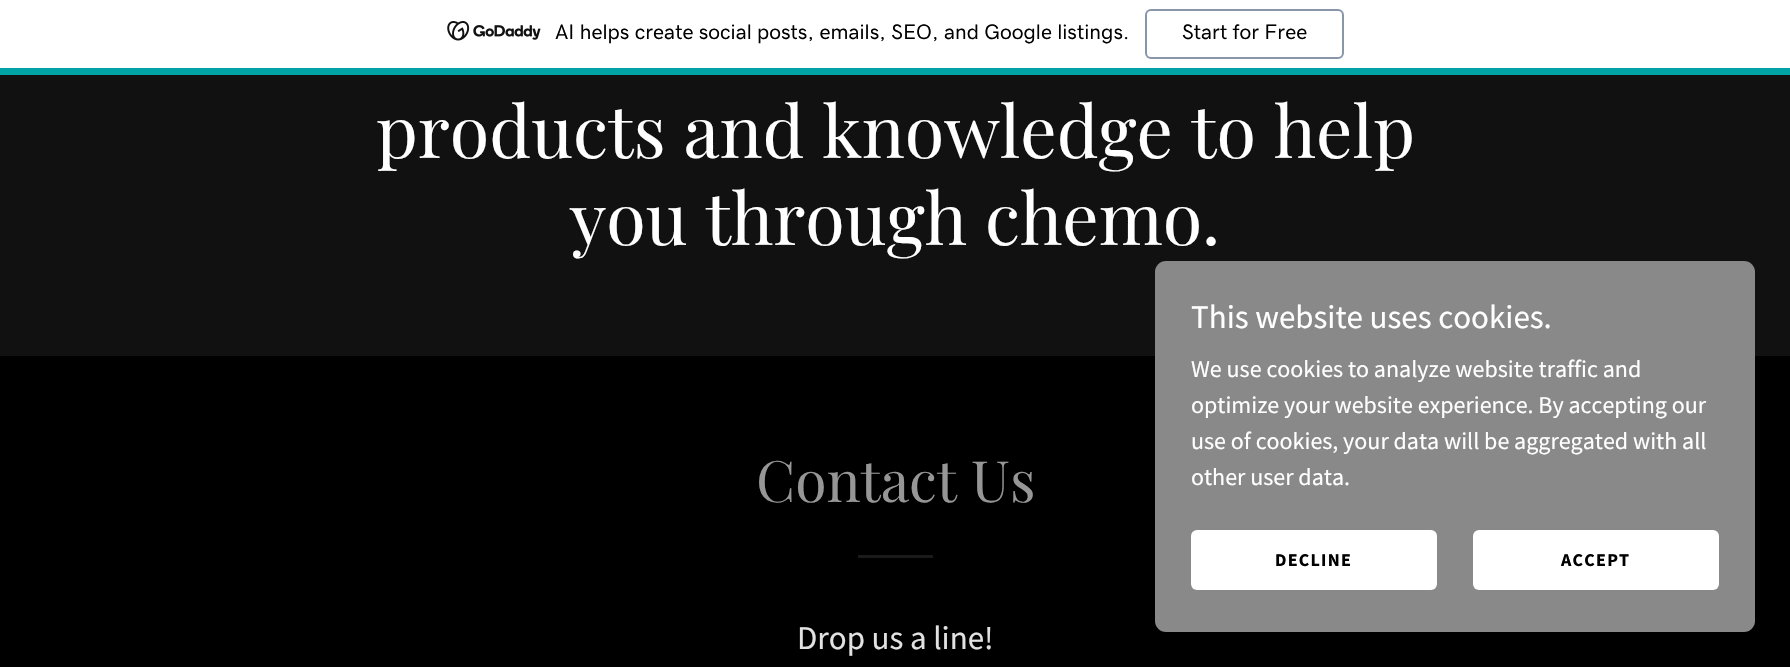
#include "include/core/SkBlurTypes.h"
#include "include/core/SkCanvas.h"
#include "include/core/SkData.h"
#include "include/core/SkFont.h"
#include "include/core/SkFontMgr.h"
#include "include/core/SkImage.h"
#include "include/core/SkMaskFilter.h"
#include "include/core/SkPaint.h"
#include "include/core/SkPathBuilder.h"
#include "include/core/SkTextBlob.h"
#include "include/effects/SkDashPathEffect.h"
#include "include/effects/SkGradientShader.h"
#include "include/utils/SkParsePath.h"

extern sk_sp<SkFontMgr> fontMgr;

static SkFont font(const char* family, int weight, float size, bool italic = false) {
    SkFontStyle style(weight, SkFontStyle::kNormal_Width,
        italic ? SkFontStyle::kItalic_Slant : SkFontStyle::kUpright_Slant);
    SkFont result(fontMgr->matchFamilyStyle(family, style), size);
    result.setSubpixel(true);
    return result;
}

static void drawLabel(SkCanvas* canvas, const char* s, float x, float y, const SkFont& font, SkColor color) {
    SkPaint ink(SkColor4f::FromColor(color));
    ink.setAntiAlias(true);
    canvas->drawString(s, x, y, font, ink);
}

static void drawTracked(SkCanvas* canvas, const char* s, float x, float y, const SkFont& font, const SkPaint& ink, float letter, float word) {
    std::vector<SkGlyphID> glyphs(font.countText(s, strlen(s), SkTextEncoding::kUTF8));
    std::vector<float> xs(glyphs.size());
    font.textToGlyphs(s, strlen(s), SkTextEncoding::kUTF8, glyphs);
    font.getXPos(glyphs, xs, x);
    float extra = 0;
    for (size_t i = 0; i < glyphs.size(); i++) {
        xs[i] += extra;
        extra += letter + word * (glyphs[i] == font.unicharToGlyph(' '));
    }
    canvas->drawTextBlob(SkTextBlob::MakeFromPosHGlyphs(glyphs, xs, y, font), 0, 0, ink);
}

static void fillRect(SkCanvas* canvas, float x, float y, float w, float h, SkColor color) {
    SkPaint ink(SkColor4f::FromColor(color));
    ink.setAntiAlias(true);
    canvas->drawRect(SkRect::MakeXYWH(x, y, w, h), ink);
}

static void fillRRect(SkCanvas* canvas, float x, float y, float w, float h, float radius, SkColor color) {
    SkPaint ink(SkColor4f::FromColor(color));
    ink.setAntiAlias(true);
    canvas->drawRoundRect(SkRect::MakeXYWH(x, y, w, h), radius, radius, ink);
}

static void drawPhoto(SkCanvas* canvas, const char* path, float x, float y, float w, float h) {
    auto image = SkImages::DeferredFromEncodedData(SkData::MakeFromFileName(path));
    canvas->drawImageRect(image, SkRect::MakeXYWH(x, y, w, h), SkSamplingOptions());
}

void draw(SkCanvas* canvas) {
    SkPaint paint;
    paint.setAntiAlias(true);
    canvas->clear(0xFF000000);
    fillRect(canvas, 0, 0, 1790, 68, 0xFFFFFFFF);
    fillRect(canvas, 0, 68, 1790, 7, 0xFF00A4A6);
    drawPhoto(canvas, "assets/img1.png", 447, 21, 94, 20);
    SkFont font1 = font("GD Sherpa", 500, 21);
    drawLabel(canvas, "AI helps create social posts, emails, SEO, and Google listings.", 555, 39, font1, 0xFF000000);
    paint.setStroke(true);
    paint.setStrokeWidth(2);
    paint.setColor(0xFF8995A9);
    canvas->drawRoundRect(SkRect::MakeXYWH(1146, 10, 197, 48), 5, 5, paint);
    drawLabel(canvas, "Start for Free", 1182, 39, font1, 0xFF000000);
    fillRect(canvas, 0, 75, 1790, 281, 0xFF111111);
    SkFont font2 = font("Playfair Display", 400, 72);
    drawLabel(canvas, "products and knowledge to help", 376, 158, font2, 0xFFFFFFFF);
    drawLabel(canvas, "you through chemo.", 570, 245, font2, 0xFFFFFFFF);
    SkFont font3 = font("Playfair Display", 400, 57);
    drawLabel(canvas, "Contact Us", 756, 502, font3, 0xFF969696);
    fillRect(canvas, 858, 555, 75, 3, 0xFF1B1B1B);
    SkFont font4 = font("Source Sans Pro", 400, 33);
    drawLabel(canvas, "Drop us a line!", 797, 649, font4, 0xFFE2E2E2);
    fillRRect(canvas, 1155, 261, 600, 371, 11, 0xFF898989);
    drawLabel(canvas, "This website uses cookies.", 1191, 328, font4, 0xFFFFFFFF);
    SkFont font5 = font("Source Sans Pro", 400, 24);
    drawLabel(canvas, "We use cookies to analyze website traffic and", 1191, 377, font5, 0xFFFFFFFF);
    drawLabel(canvas, "optimize your website experience. By accepting our", 1191, 413, font5, 0xFFFFFFFF);
    drawLabel(canvas, "use of cookies, your data will be aggregated with all", 1191, 449, font5, 0xFFFFFFFF);
    drawLabel(canvas, "other user data.", 1191, 485, font5, 0xFFFFFFFF);
    fillRRect(canvas, 1191, 530, 246, 60, 6, 0xFFFFFFFF);
    SkFont font6 = font("Source Sans Pro", 700, 18);
    paint.setStroke(false);
    paint.setColor(0xFF000000);
    drawTracked(canvas, "DECLINE", 1275, 566, font6, paint, 1.25f, 0);
    fillRRect(canvas, 1473, 530, 246, 60, 6, 0xFFFFFFFF);
    drawTracked(canvas, "ACCEPT", 1561, 566, font6, paint, 1.25f, 0);
}
